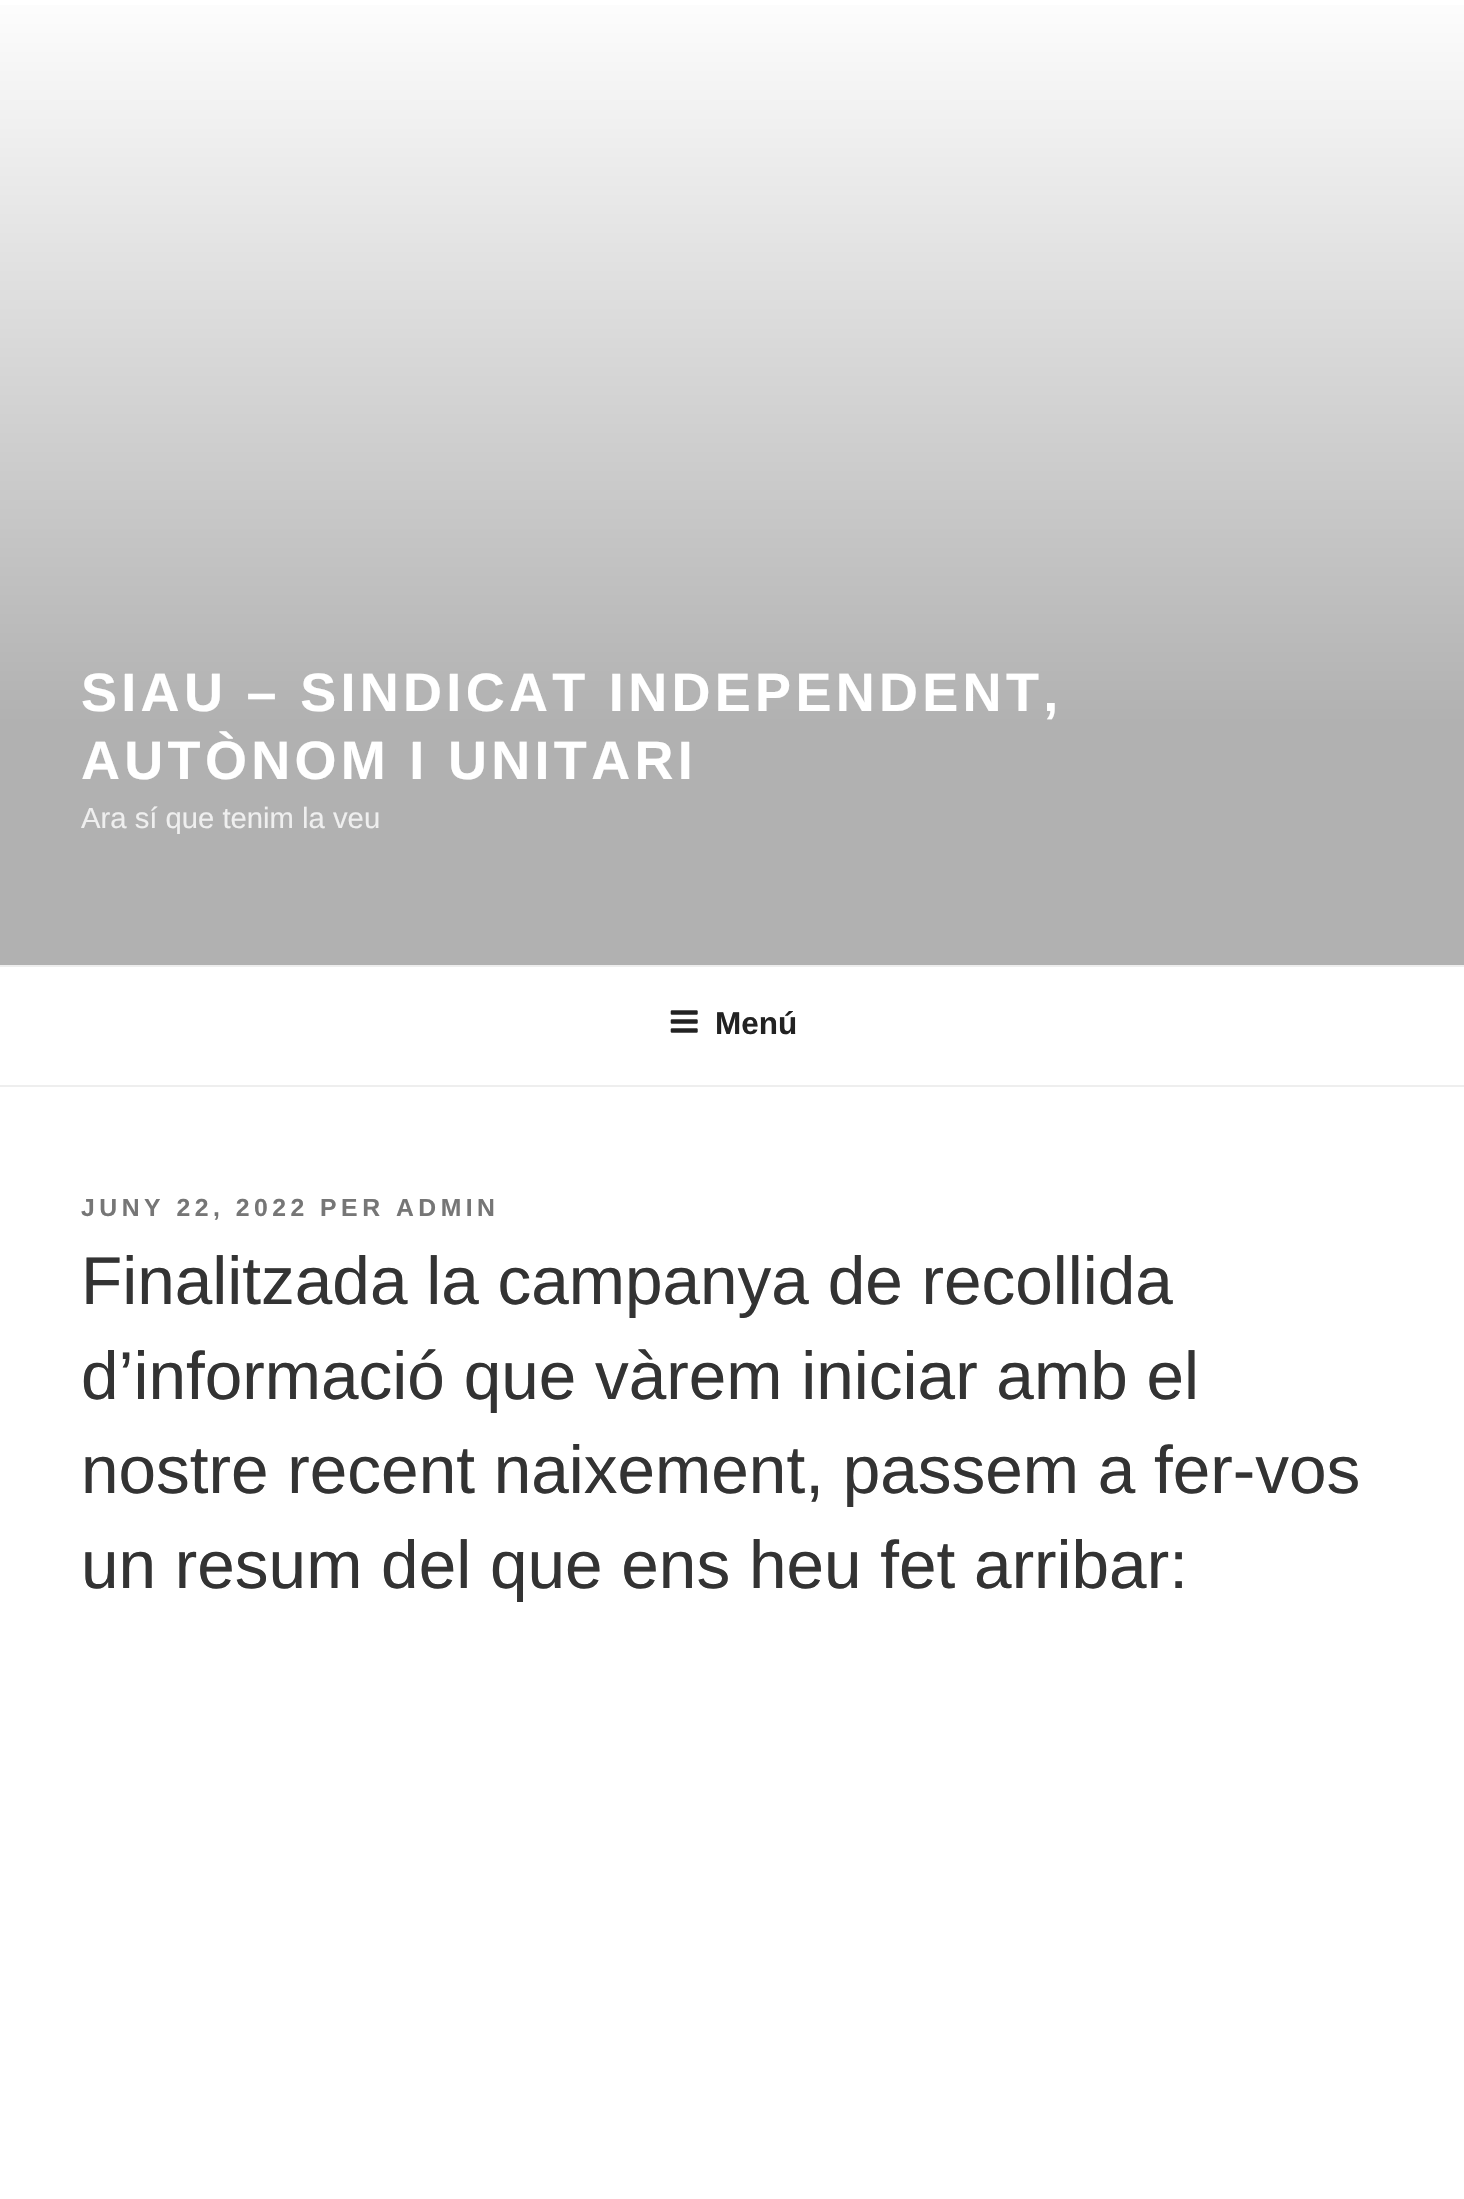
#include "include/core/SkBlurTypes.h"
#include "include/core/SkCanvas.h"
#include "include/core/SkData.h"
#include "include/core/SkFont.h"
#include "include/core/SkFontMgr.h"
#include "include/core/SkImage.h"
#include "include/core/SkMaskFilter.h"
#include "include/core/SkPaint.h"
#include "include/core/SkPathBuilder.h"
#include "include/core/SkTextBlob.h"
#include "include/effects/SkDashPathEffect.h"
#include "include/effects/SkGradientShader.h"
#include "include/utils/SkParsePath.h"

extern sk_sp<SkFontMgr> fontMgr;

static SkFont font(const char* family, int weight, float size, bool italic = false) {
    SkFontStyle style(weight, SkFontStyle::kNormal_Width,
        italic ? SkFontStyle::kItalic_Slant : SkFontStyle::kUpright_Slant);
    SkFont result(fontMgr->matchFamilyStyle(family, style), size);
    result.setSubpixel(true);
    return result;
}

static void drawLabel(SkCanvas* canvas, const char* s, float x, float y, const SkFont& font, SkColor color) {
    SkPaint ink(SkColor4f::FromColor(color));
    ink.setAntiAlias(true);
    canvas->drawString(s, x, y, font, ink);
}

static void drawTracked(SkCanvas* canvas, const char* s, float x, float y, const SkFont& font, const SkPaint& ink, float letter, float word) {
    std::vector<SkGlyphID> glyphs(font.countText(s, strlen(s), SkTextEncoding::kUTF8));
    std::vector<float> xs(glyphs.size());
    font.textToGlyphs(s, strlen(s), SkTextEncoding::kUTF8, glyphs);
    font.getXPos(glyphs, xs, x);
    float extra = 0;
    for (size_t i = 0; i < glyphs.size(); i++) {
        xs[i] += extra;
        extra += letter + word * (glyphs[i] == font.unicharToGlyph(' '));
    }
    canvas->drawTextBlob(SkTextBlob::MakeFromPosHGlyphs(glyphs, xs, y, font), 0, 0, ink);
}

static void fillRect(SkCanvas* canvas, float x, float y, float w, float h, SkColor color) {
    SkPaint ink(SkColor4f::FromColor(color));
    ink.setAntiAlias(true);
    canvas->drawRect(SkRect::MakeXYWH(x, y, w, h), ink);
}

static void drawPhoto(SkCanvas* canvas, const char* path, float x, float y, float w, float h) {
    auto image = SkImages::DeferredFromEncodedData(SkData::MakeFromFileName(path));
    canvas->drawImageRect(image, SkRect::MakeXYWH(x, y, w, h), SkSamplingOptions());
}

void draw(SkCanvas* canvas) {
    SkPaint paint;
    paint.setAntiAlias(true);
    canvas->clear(0xFFFFFFFF);
    {
        const SkColor colors[] = {0xFFFDFDFD, 0xFFB1B1B1, 0xFFB1B1B1};
        const float stops[] = {0, 0.75f, 1};
        const SkPoint ends[] = {{732, 0}, {732, 965}};
        paint.setShader(SkGradientShader::MakeLinear(ends, colors, stops, 3, SkTileMode::kClamp));
        paint.setAlpha(255);
    }
    canvas->drawRect(SkRect::MakeXYWH(0, 5, 1464, 960), paint);
    SkFont font1 = font("Liberation Sans", 700, 54);
    paint.setShader(nullptr);
    paint.setColor(0xFFFFFFFF);
    drawTracked(canvas, "SIAU – SINDICAT INDEPENDENT,", 81, 711, font1, paint, 4.3f, 0);
    drawTracked(canvas, "AUTÒNOM I UNITARI", 81, 779, font1, paint, 4.3f, 0);
    SkFont font2 = font("Liberation Sans", 400, 29.25f);
    drawLabel(canvas, "Ara sí que tenim la veu", 81, 828, font2, 0xFFEFEFEF);
    fillRect(canvas, 0, 965, 1464, 2, 0xFFEEEEEE);
    fillRect(canvas, 0, 1085, 1464, 2, 0xFFEEEEEE);
    drawPhoto(canvas, "assets/img1.png", 670, 1010, 28, 23);
    SkFont font3 = font("Liberation Sans", 700, 31.5f);
    drawLabel(canvas, "Menú", 715, 1034, font3, 0xFF222222);
    SkFont font4 = font("Liberation Sans", 700, 24.75f);
    paint.setColor(0xFF767676);
    drawTracked(canvas, "JUNY 22, 2022 PER ADMIN", 81, 1216, font4, paint, 4.5f, 0);
    SkFont font5 = font("Liberation Sans", 400, 67.5f);
    drawLabel(canvas, "Finalitzada la campanya de recollida", 81, 1304, font5, 0xFF333333);
    drawLabel(canvas, "d’informació que vàrem iniciar amb el", 81, 1399, font5, 0xFF333333);
    drawLabel(canvas, "nostre recent naixement, passem a fer-vos", 81, 1493, font5, 0xFF333333);
    drawLabel(canvas, "un resum del que ens heu fet arribar:", 81, 1588, font5, 0xFF333333);
}
